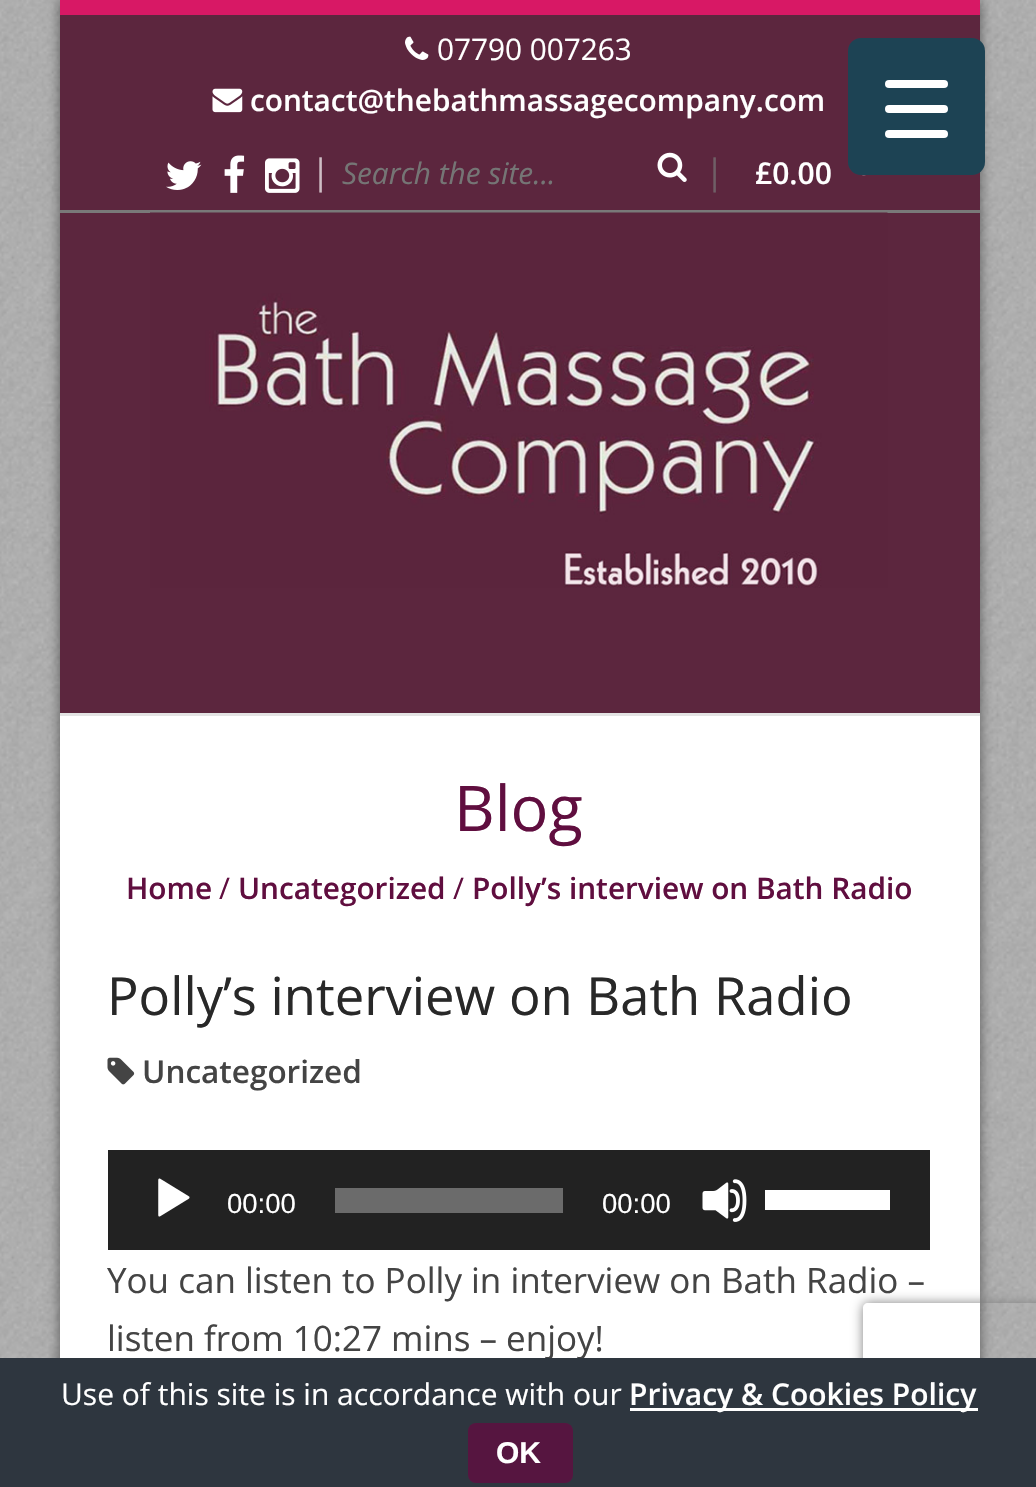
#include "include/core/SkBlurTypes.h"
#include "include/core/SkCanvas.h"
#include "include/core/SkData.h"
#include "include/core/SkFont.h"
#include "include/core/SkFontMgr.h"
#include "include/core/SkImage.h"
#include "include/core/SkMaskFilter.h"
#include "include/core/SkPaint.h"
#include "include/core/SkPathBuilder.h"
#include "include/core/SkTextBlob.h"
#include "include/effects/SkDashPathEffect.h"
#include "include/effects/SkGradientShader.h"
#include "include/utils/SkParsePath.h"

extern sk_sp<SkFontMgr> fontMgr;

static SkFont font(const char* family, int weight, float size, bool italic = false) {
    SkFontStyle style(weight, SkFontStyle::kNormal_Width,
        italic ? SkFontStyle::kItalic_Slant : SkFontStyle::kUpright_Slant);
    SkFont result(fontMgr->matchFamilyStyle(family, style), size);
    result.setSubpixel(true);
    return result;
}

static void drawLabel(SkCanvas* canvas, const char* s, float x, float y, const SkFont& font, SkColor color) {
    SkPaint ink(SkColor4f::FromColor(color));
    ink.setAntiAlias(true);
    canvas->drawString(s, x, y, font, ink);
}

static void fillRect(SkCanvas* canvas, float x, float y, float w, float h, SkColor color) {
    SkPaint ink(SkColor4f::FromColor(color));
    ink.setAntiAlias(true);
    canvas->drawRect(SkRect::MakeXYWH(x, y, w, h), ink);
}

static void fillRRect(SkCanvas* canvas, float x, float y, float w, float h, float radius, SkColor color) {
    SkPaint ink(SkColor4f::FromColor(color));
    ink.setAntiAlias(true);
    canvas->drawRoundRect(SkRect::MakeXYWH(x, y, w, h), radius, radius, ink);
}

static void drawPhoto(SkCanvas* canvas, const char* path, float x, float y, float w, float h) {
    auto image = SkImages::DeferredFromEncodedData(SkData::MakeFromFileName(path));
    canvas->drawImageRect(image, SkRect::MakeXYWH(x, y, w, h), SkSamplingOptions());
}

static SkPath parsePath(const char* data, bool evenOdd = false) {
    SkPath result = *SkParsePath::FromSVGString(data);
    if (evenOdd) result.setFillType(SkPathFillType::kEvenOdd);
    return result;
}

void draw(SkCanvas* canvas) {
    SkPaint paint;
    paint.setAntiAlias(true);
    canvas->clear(0xFFFFFFFF);
    drawPhoto(canvas, "assets/img1.png", 0, 0, 1036, 1358);
    paint.setColor(0x80000000);
    paint.setMaskFilter(SkMaskFilter::MakeBlur(kNormal_SkBlurStyle, 6));
    canvas->drawRect(SkRect::MakeXYWH(60, 0, 920, 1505), paint);
    paint.setMaskFilter(nullptr);
    fillRect(canvas, 60, 716, 920, 642, 0xFFFFFFFF);
    fillRect(canvas, 60, 15, 920, 698, 0xFF5C263E);
    fillRect(canvas, 60, 0, 920, 15, 0xFFD81865);
    fillRect(canvas, 60, 210, 920, 3, 0xFF797979);
    drawPhoto(canvas, "assets/img2.png", 405, 36, 24, 24);
    SkFont font1 = font("Open Sans", 400, 29.75f);
    drawLabel(canvas, "07790 007263", 437, 60, font1, 0xFFFFFFFF);
    drawPhoto(canvas, "assets/img3.png", 212, 88, 31, 25);
    SkFont font2 = font("Open Sans", 600, 29.75f);
    drawLabel(canvas, "contact@thebathmassagecompany.com", 250, 111, font2, 0xFFFFFFFF);
    drawPhoto(canvas, "assets/img4.png", 166, 161, 36, 29);
    drawPhoto(canvas, "assets/img5.png", 224, 155, 21, 38);
    drawPhoto(canvas, "assets/img6.png", 265, 158, 35, 35);
    SkFont font3 = font("Open Sans", 400, 35);
    drawLabel(canvas, "|", 311, 184, font3, 0xFFCEBEC5);
    SkFont font4 = font("Open Sans", 400, 29.75f, true);
    drawLabel(canvas, "Search the site...", 342, 184, font4, 0xFF757575);
    drawPhoto(canvas, "assets/img7.png", 657, 152, 30, 30);
    drawLabel(canvas, "|", 705, 184, font3, 0xFF6F5F66);
    SkFont font5 = font("Open Sans", 600, 30);
    drawLabel(canvas, "£0.00", 755, 184, font5, 0xFFFFFFFF);
    drawPhoto(canvas, "assets/img8.png", 862, 175, 4, 1);
    drawPhoto(canvas, "assets/img9.png", 150, 212, 738, 376);
    fillRect(canvas, 60, 713, 920, 3, 0xFFE3E3E3);
    SkFont font6 = font("Open Sans", 400, 63);
    drawLabel(canvas, "Blog", 454, 831, font6, 0xFF600E3F);
    drawLabel(canvas, "Home", 126, 899, font2, 0xFF600E3F);
    drawLabel(canvas, "/", 219, 899, font1, 0xFF600E3F);
    drawLabel(canvas, "Uncategorized", 238, 899, font2, 0xFF600E3F);
    drawLabel(canvas, "/", 453, 899, font1, 0xFF600E3F);
    drawLabel(canvas, "Polly’s interview on Bath Radio", 472, 899, font2, 0xFF600E3F);
    SkFont font7 = font("Open Sans", 400, 52.5f);
    drawLabel(canvas, "Polly’s interview on Bath Radio", 107, 1015, font7, 0xFF282828);
    drawPhoto(canvas, "assets/img10.png", 107, 1057, 28, 28);
    SkFont font8 = font("Open Sans", 600, 31.5f);
    drawLabel(canvas, "Uncategorized", 142, 1083, font8, 0xFF444444);
    fillRect(canvas, 108, 1150, 822, 100, 0xFF222222);
    drawPhoto(canvas, "assets/img11.png", 158, 1178, 32, 39);
    SkFont font9 = font("Liberation Sans", 400, 27.5f);
    drawLabel(canvas, "00:00", 227, 1213, font9, 0xFFFFFFFF);
    fillRect(canvas, 335, 1188, 228, 25, 0xFF6B6B6B);
    drawLabel(canvas, "00:00", 602, 1213, font9, 0xFFFFFFFF);
    drawPhoto(canvas, "assets/img12.png", 702, 1179, 45, 43);
    fillRect(canvas, 765, 1190, 125, 20, 0xFFFFFFFF);
    drawLabel(canvas, "You can listen to Polly in interview on Bath Radio –", 107, 1293, font3, 0xFF444444);
    drawLabel(canvas, "listen from 10:27 mins – enjoy!", 107, 1351, font3, 0xFF444444);
    fillRRect(canvas, 848, 38, 137, 137, 13, 0xFF1D4354);
    fillRRect(canvas, 885, 105, 63, 8, 4, 0xFFFFFFFF);
    fillRRect(canvas, 885, 80, 63, 8, 4, 0xFFFFFFFF);
    fillRRect(canvas, 885, 130, 63, 8, 4, 0xFFFFFFFF);
    canvas->save();
    canvas->clipPath(parsePath("M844 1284H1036V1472H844ZM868 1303H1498C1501 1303 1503 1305 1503 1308V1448C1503 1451 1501 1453 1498 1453H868C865 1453 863 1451 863 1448V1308C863 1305 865 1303 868 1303Z", true), true);
    paint.setColor(0xFF808080);
    paint.setMaskFilter(SkMaskFilter::MakeBlur(kNormal_SkBlurStyle, 6));
    canvas->drawRoundRect(SkRect::MakeXYWH(863, 1303, 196, 150), 5, 5, paint);
    paint.setMaskFilter(nullptr);
    canvas->restore();
    fillRect(canvas, 0, 1358, 1036, 129, 0xFF2E363F);
    SkFont font10 = font("Open Sans", 400, 30);
    drawLabel(canvas, "Use of this site is in accordance with our", 61, 1405, font10, 0xFFFFFFFF);
    fillRect(canvas, 630, 1408, 348, 3, 0xFFFFFFFF);
    drawLabel(canvas, "Privacy & Cookies Policy", 629, 1405, font5, 0xFFFFFFFF);
    fillRRect(canvas, 468, 1423, 105, 60, 8, 0xFF561540);
    SkFont font11 = font("Liberation Sans", 700, 30);
    drawLabel(canvas, "OK", 496, 1463, font11, 0xFFFFFFFF);
}
